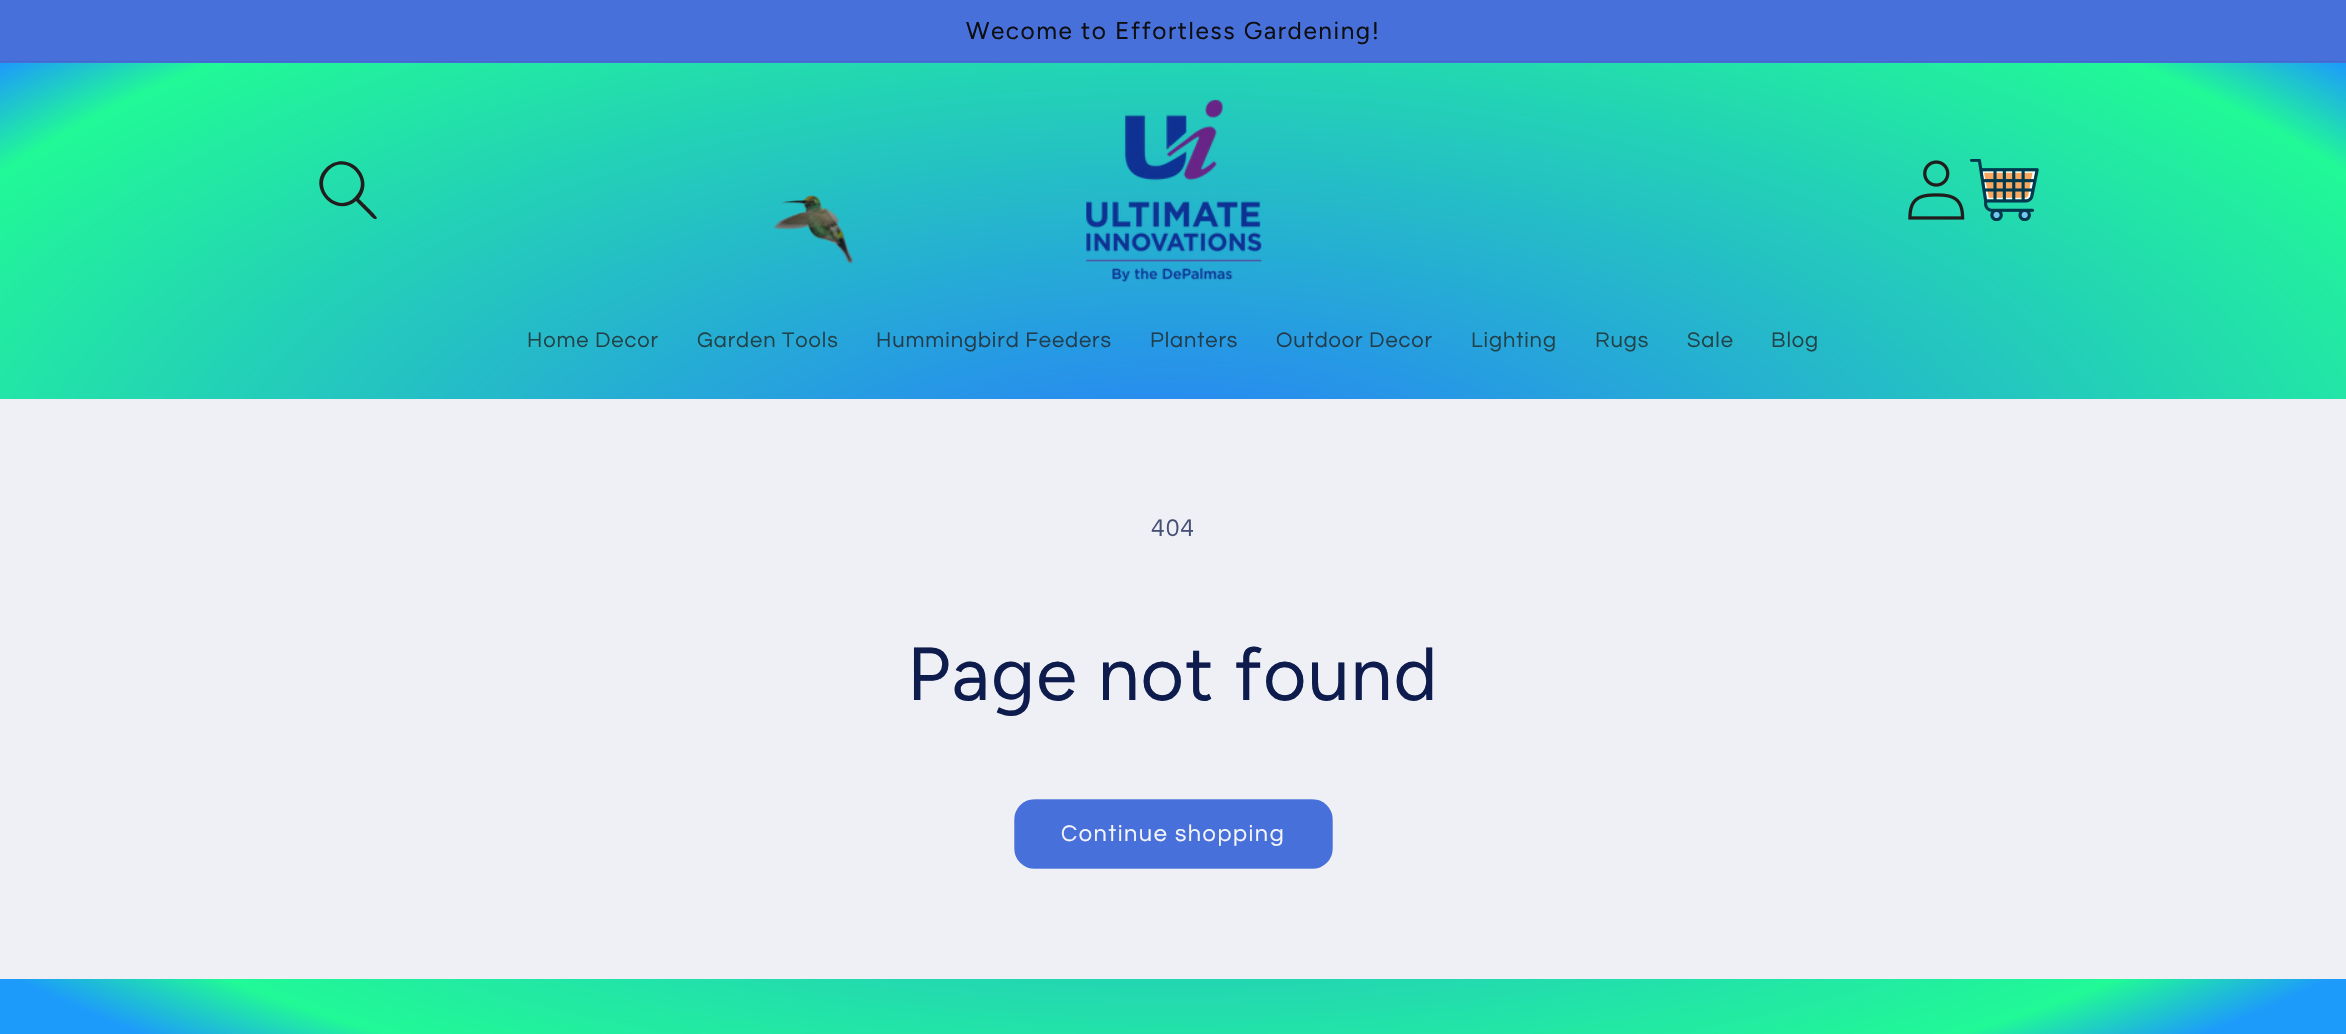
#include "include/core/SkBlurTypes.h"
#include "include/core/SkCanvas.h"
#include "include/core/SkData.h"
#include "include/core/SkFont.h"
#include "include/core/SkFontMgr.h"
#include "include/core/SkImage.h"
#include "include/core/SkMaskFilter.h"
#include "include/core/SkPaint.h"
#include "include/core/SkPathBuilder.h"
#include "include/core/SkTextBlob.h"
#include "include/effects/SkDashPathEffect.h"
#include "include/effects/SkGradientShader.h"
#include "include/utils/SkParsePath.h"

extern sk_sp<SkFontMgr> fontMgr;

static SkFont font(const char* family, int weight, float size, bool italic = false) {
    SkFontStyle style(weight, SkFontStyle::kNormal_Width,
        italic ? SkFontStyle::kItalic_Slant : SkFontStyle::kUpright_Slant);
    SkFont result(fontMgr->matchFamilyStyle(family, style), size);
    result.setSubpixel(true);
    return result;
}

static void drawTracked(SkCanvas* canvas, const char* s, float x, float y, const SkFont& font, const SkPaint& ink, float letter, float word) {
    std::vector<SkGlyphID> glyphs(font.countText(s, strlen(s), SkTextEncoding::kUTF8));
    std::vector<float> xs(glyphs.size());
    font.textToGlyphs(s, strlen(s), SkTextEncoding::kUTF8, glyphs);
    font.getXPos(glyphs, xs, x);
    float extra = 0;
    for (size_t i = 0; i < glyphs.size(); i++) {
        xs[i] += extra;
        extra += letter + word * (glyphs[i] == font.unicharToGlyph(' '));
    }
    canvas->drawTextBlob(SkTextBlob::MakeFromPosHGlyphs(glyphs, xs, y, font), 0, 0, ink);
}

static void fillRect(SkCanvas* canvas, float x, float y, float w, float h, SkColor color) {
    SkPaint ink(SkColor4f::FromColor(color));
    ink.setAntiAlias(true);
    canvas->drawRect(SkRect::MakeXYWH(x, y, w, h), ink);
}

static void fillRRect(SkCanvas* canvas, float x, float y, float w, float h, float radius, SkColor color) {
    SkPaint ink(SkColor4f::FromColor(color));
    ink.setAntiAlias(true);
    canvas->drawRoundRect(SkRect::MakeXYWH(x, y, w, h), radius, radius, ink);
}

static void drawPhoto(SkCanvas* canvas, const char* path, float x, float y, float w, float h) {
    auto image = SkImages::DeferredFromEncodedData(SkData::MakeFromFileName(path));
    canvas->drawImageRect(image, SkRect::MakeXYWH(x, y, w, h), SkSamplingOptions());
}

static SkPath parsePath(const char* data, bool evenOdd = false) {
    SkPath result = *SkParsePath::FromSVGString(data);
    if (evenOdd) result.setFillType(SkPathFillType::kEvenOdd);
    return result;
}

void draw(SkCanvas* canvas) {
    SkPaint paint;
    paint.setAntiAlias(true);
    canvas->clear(0xFFEFF0F5);
    fillRect(canvas, 0, 0, 2346, 63, 0xFF4770DB);
    fillRect(canvas, 0, 61, 2346, 1, 0xFF4268CB);
    SkFont font1 = font("Figtree", 400, 24.4f);
    paint.setColor(0xFF0D0E10);
    drawTracked(canvas, "Wecome to Effortless Gardening!", 966, 39, font1, paint, 1.55f, 0);
    {
        const SkColor colors[] = {0xFFC9E3EC, 0xFF287DFB, 0xFF21F996, 0xFF1D9BFB};
        const float stops[] = {0.03f, 0.06f, 0.85f, 0.94f};
        SkMatrix m = SkMatrix::Translate(1173, 518).preScale(1659, 732);
        paint.setShader(SkGradientShader::MakeRadial({0, 0}, 1, colors, stops, 4, SkTileMode::kClamp, 0, &m));
        paint.setAlpha(255);
    }
    canvas->drawRect(SkRect::MakeXYWH(0, 63, 2346, 336), paint);
    paint.setShader(nullptr);
    paint.setColor(0xFF211D1D);
    canvas->drawPath(parsePath("M355 197C338 215 311 188 329 170C346 153 373 180 355 197ZM356 201C335 219 306 187 326 168C347 148 377 177 359 199C361 201 377 216 377 218L376 219C374 220 369 214 368 213Z", true), paint);
    drawPhoto(canvas, "assets/img1.png", 773, 195, 81, 69);
    drawPhoto(canvas, "assets/img2.png", 1086, 99, 176, 183);
    drawPhoto(canvas, "assets/img3.png", 1908, 160, 57, 60);
    drawPhoto(canvas, "assets/img4.png", 1970, 159, 69, 62);
    SkFont font2 = font("Questrial", 400, 21.9f);
    paint.setColor(0xFF224349);
    drawTracked(canvas, "Home Decor", 527, 347, font2, paint, 0.9f, 0);
    drawTracked(canvas, "Garden Tools", 697, 347, font2, paint, 0.9f, 0);
    paint.setColor(0xFF223D4E);
    drawTracked(canvas, "Hummingbird Feeders", 876, 347, font2, paint, 0.9f, 0);
    drawTracked(canvas, "Planters", 1150, 347, font2, paint, 0.9f, 0);
    drawTracked(canvas, "Outdoor Decor", 1276, 347, font2, paint, 0.9f, 0);
    paint.setColor(0xFF224349);
    drawTracked(canvas, "Lighting", 1471, 347, font2, paint, 0.9f, 0);
    drawTracked(canvas, "Rugs", 1595, 347, font2, paint, 0.9f, 0);
    drawTracked(canvas, "Sale", 1687, 347, font2, paint, 0.9f, 0);
    drawTracked(canvas, "Blog", 1771, 347, font2, paint, 0.9f, 0);
    SkFont font3 = font("Questrial", 400, 25);
    paint.setColor(0xFF465077);
    drawTracked(canvas, "404", 1151, 536, font3, paint, 0.9f, 0);
    SkFont font4 = font("Figtree", 400, 75);
    paint.setColor(0xFF0E1B4D);
    drawTracked(canvas, "Page not found", 907, 700, font4, paint, 1.1f, 0);
    fillRRect(canvas, 1014, 799, 319, 70, 21, 0xFF4770DB);
    paint.setStroke(true);
    paint.setStrokeWidth(0.4f);
    paint.setColor(0xFFF6F6F8);
    canvas->drawRoundRect(SkRect::MakeXYWH(1014.2f, 799.2f, 318.6f, 69.6f), 17.8f, 17.8f, paint);
    SkFont font5 = font("Questrial", 400, 23.5f);
    paint.setStroke(false);
    drawTracked(canvas, "Continue shopping", 1061, 841, font5, paint, 1.55f, 0);
    {
        const SkColor colors[] = {0xFFC9E3EC, 0xFF287DFB, 0xFF21F996, 0xFF1D9BFB};
        const float stops[] = {0.03f, 0.06f, 0.85f, 0.94f};
        SkMatrix m = SkMatrix::Translate(1173, 518).preScale(1659, 732);
        paint.setShader(SkGradientShader::MakeRadial({0, 0}, 1, colors, stops, 4, SkTileMode::kClamp, 0, &m));
        paint.setAlpha(255);
    }
    canvas->drawRect(SkRect::MakeXYWH(0, 979, 2346, 55), paint);
}
